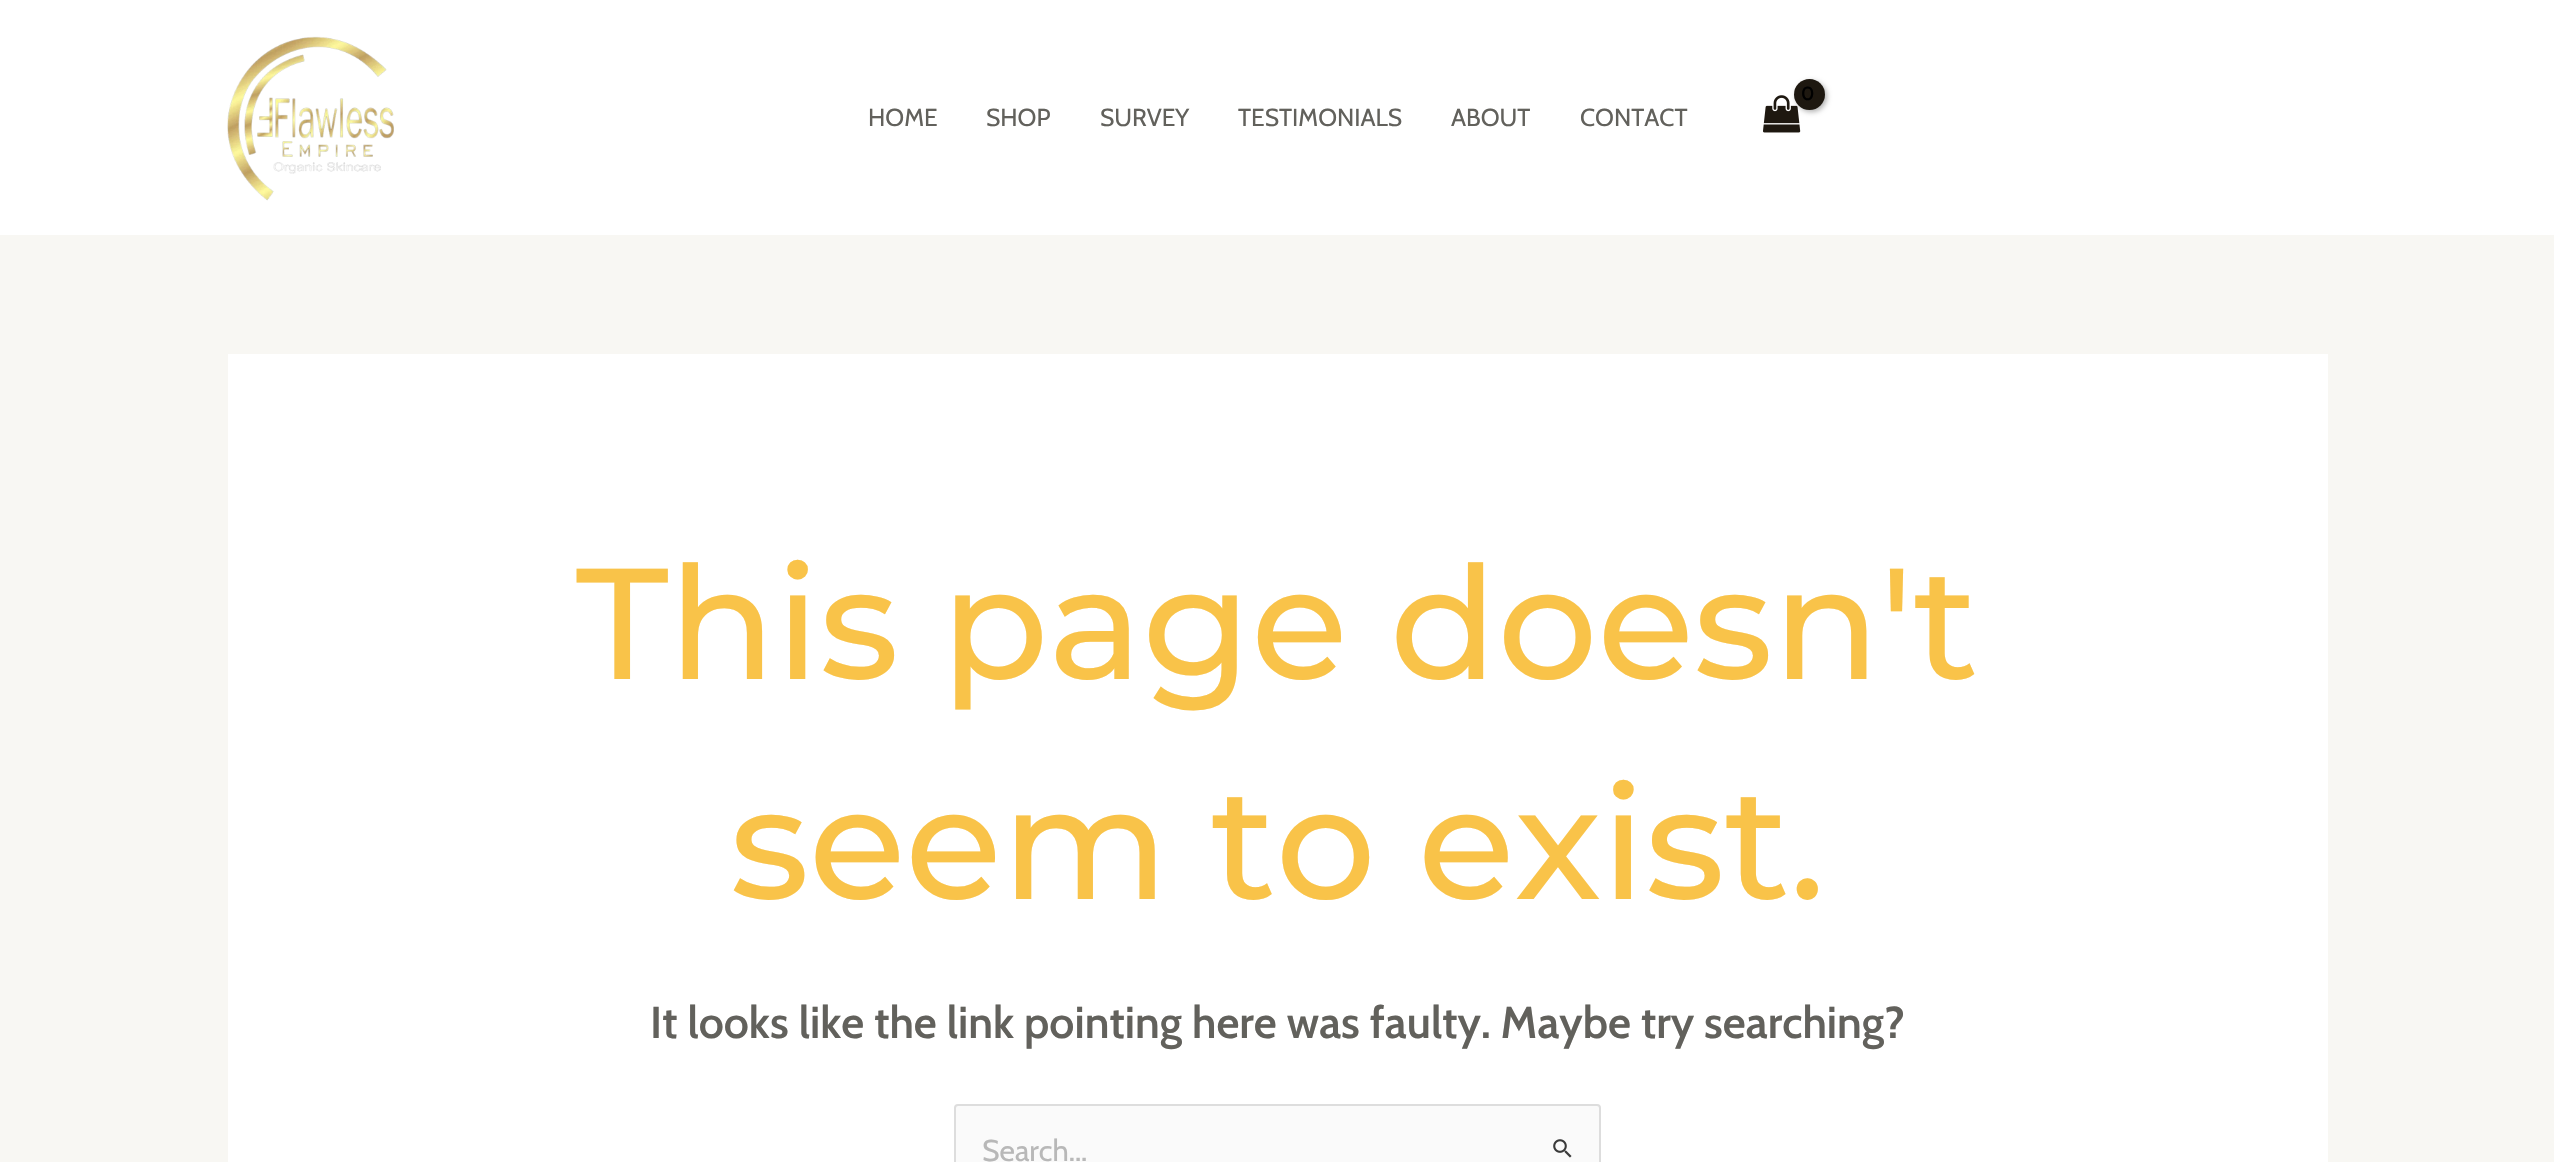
#include "include/core/SkBlurTypes.h"
#include "include/core/SkCanvas.h"
#include "include/core/SkData.h"
#include "include/core/SkFont.h"
#include "include/core/SkFontMgr.h"
#include "include/core/SkImage.h"
#include "include/core/SkMaskFilter.h"
#include "include/core/SkPaint.h"
#include "include/core/SkPathBuilder.h"
#include "include/core/SkTextBlob.h"
#include "include/effects/SkDashPathEffect.h"
#include "include/effects/SkGradientShader.h"
#include "include/utils/SkParsePath.h"

extern sk_sp<SkFontMgr> fontMgr;

static SkFont font(const char* family, int weight, float size, bool italic = false) {
    SkFontStyle style(weight, SkFontStyle::kNormal_Width,
        italic ? SkFontStyle::kItalic_Slant : SkFontStyle::kUpright_Slant);
    SkFont result(fontMgr->matchFamilyStyle(family, style), size);
    result.setSubpixel(true);
    return result;
}

static void drawLabel(SkCanvas* canvas, const char* s, float x, float y, const SkFont& font, SkColor color) {
    SkPaint ink(SkColor4f::FromColor(color));
    ink.setAntiAlias(true);
    canvas->drawString(s, x, y, font, ink);
}

static void drawTracked(SkCanvas* canvas, const char* s, float x, float y, const SkFont& font, const SkPaint& ink, float letter, float word) {
    std::vector<SkGlyphID> glyphs(font.countText(s, strlen(s), SkTextEncoding::kUTF8));
    std::vector<float> xs(glyphs.size());
    font.textToGlyphs(s, strlen(s), SkTextEncoding::kUTF8, glyphs);
    font.getXPos(glyphs, xs, x);
    float extra = 0;
    for (size_t i = 0; i < glyphs.size(); i++) {
        xs[i] += extra;
        extra += letter + word * (glyphs[i] == font.unicharToGlyph(' '));
    }
    canvas->drawTextBlob(SkTextBlob::MakeFromPosHGlyphs(glyphs, xs, y, font), 0, 0, ink);
}

static void fillRect(SkCanvas* canvas, float x, float y, float w, float h, SkColor color) {
    SkPaint ink(SkColor4f::FromColor(color));
    ink.setAntiAlias(true);
    canvas->drawRect(SkRect::MakeXYWH(x, y, w, h), ink);
}

static void drawPhoto(SkCanvas* canvas, const char* path, float x, float y, float w, float h) {
    auto image = SkImages::DeferredFromEncodedData(SkData::MakeFromFileName(path));
    canvas->drawImageRect(image, SkRect::MakeXYWH(x, y, w, h), SkSamplingOptions());
}

void draw(SkCanvas* canvas) {
    SkPaint paint;
    paint.setAntiAlias(true);
    canvas->clear(0xFFF8F7F3);
    fillRect(canvas, 0, 0, 2554, 235, 0xFFFFFFFF);
    drawPhoto(canvas, "assets/img1.png", 227, 36, 167, 165);
    drawPhoto(canvas, "assets/img2.png", 1763, 95, 38, 38);
    paint.setColor(0x4D000000);
    paint.setMaskFilter(SkMaskFilter::MakeBlur(kNormal_SkBlurStyle, 2.5f));
    canvas->drawRoundRect(SkRect::MakeXYWH(1796, 81, 31, 31), 15.5f, 15.5f, paint);
    paint.setMaskFilter(nullptr);
    paint.setColor(0xFF1E1810);
    canvas->drawCircle(1809.5f, 94.5f, 15.5f, paint);
    SkFont font1 = font("Cabin", 600, 19);
    paint.setColor(0xFF000000);
    drawTracked(canvas, "0", 1801, 100, font1, paint, -1, 0);
    SkFont font2 = font("Cabin", 400, 24.5f);
    drawLabel(canvas, "HOME", 868, 126, font2, 0xFF62615C);
    drawLabel(canvas, "SHOP", 986, 126, font2, 0xFF62615C);
    drawLabel(canvas, "SURVEY", 1100, 126, font2, 0xFF62615C);
    drawLabel(canvas, "TESTIMONIALS", 1238, 126, font2, 0xFF62615C);
    drawLabel(canvas, "ABOUT", 1451, 126, font2, 0xFF62615C);
    drawLabel(canvas, "CONTACT", 1580, 126, font2, 0xFF62615C);
    fillRect(canvas, 228, 354, 2100, 808, 0xFFFFFFFF);
    SkFont font3 = font("Montserrat", 100, 157.5f);
    drawLabel(canvas, "This page doesn't", 576, 679, font3, 0xFFF9C349);
    drawLabel(canvas, "seem to exist.", 730, 899, font3, 0xFFF9C349);
    SkFont font4 = font("Cabin", 600, 44.6f);
    drawLabel(canvas, "It looks like the link pointing here was faulty. Maybe try searching?", 650, 1038, font4, 0xFF62615C);
    paint.setColor(0xFFFAFAFA);
    canvas->drawRoundRect(SkRect::MakeXYWH(955, 1105, 645, 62), 3, 3, paint);
    paint.setStroke(true);
    paint.setStrokeWidth(2);
    paint.setColor(0xFFDDDDDD);
    canvas->drawRoundRect(SkRect::MakeXYWH(955, 1105, 645, 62), 3, 3, paint);
    SkFont font5 = font("Cabin", 400, 30);
    drawLabel(canvas, "Search...", 982, 1161, font5, 0xFFB8B8B8);
    drawPhoto(canvas, "assets/img3.png", 1553, 1139, 19, 19);
}
